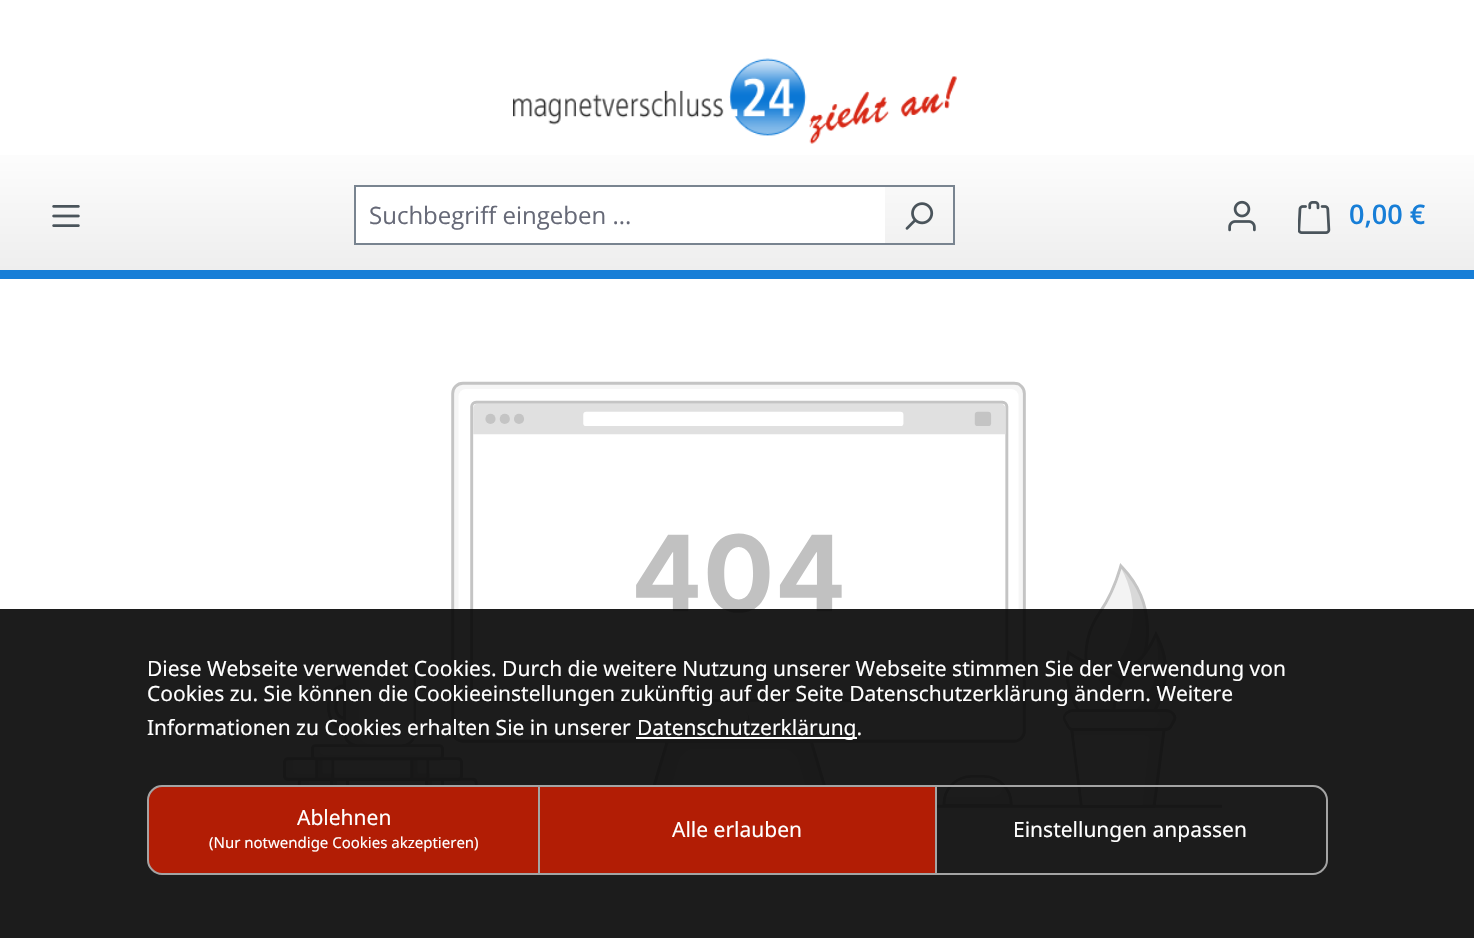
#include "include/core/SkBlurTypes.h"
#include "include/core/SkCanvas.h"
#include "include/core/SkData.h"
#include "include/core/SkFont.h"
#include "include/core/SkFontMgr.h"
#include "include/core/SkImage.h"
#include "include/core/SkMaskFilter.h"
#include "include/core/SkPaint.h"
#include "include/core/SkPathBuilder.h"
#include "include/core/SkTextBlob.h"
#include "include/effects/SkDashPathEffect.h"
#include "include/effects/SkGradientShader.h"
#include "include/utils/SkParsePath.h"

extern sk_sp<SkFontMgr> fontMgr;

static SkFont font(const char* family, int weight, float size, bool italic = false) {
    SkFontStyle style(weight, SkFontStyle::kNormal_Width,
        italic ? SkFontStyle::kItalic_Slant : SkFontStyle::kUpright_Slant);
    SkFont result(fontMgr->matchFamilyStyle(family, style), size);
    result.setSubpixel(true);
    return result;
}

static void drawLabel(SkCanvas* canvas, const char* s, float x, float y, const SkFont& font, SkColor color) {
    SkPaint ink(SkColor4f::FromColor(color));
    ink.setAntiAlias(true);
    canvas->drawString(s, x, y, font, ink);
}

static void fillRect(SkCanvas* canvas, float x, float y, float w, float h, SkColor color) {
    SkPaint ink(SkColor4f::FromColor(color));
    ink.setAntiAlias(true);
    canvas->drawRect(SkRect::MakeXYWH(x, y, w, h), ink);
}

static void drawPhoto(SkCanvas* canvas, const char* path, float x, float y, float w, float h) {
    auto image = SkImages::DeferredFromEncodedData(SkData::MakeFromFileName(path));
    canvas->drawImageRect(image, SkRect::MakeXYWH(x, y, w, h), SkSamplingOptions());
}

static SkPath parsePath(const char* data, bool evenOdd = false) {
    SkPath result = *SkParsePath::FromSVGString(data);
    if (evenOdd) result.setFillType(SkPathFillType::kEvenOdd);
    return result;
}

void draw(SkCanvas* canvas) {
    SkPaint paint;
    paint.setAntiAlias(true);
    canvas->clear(0xFFFFFFFF);
    {
        const SkColor colors[] = {0xFFFFFFFF, 0xFFFFFFFF, 0xFFEEEEEE};
        const float stops[] = {0, 0.5f, 1};
        const SkPoint ends[] = {{737, 0}, {737, 270}};
        paint.setShader(SkGradientShader::MakeLinear(ends, colors, stops, 3, SkTileMode::kClamp));
        paint.setAlpha(255);
    }
    canvas->drawRect(SkRect::MakeXYWH(0, 155, 1474, 115), paint);
    drawPhoto(canvas, "assets/img1.png", 513, 58, 444, 86);
    drawPhoto(canvas, "assets/img2.png", 52, 205, 28, 22);
    fillRect(canvas, 356, 187, 529, 56, 0xFFFFFFFF);
    fillRect(canvas, 354, 185, 600, 2, 0xFF798490);
    fillRect(canvas, 354, 243, 531, 2, 0xFF798490);
    fillRect(canvas, 354, 185, 2, 60, 0xFF798490);
    SkFont font1 = font("Open Sans", 400, 24);
    drawLabel(canvas, "Suchbegriff eingeben ...", 369, 224, font1, 0xFF666977);
    fillRect(canvas, 953, 185, 2, 60, 0xFF798490);
    fillRect(canvas, 884, 243, 70, 2, 0xFF798490);
    drawPhoto(canvas, "assets/img3.png", 905, 202, 29, 28);
    drawPhoto(canvas, "assets/img4.png", 1228, 200, 28, 32);
    drawPhoto(canvas, "assets/img5.png", 1298, 201, 33, 33);
    SkFont font2 = font("Open Sans", 600, 27);
    drawLabel(canvas, "0,00 €", 1349, 224, font2, 0xFF177ED7);
    fillRect(canvas, 0, 270, 1474, 9, 0xFF177ED7);
    drawPhoto(canvas, "assets/img6.png", 283, 381, 940, 427);
    fillRect(canvas, 0, 609, 1474, 329, 0xE6030303);
    SkFont font3 = font("Noto Sans", 400, 21);
    drawLabel(canvas, "Diese Webseite verwendet Cookies. Durch die weitere Nutzung unserer Webseite stimmen Sie der Verwendung von", 147, 676, font3, 0xFFFFFFFF);
    drawLabel(canvas, "Cookies zu. Sie können die Cookieeinstellungen zukünftig auf der Seite Datenschutzerklärung ändern. Weitere", 147, 701, font3, 0xFFFFFFFF);
    drawLabel(canvas, "Informationen zu Cookies erhalten Sie in unserer", 147, 735, font3, 0xFFFFFFFF);
    fillRect(canvas, 636, 737, 221, 2, 0xFFFFFFFF);
    drawLabel(canvas, "Datenschutzerklärung.", 637, 735, font3, 0xFFFFFFFF);
    paint.setShader(nullptr);
    paint.setColor(0xFFB21D05);
    canvas->drawPath(parsePath("M162 786H539V874H162C154.5 874 148 867.5 148 860V800C148 792.5 154.5 786 162 786Z"), paint);
    paint.setStroke(true);
    paint.setStrokeWidth(2);
    paint.setColor(0xFFA4A4A4);
    canvas->drawPath(parsePath("M162 786H539V874H162C154.5 874 148 867.5 148 860V800C148 792.5 154.5 786 162 786Z"), paint);
    drawLabel(canvas, "Ablehnen", 297, 825, font3, 0xFFFFFFFF);
    SkFont font4 = font("Noto Sans", 400, 15);
    drawLabel(canvas, "(Nur notwendige Cookies akzeptieren)", 209, 848, font4, 0xFFFFFFFF);
    fillRect(canvas, 540, 787, 395, 86, 0xFFB21D05);
    fillRect(canvas, 540, 785, 395, 2, 0xFFA4A4A4);
    fillRect(canvas, 540, 873, 395, 2, 0xFFA4A4A4);
    drawLabel(canvas, "Alle erlauben", 672, 837, font3, 0xFFFFFFFF);
    canvas->drawPath(parsePath("M936 786H1313C1320.5 786 1327 792.5 1327 800V860C1327 867.5 1320.5 874 1313 874H936Z"), paint);
    drawLabel(canvas, "Einstellungen anpassen", 1013, 837, font3, 0xFFFFFFFF);
}
